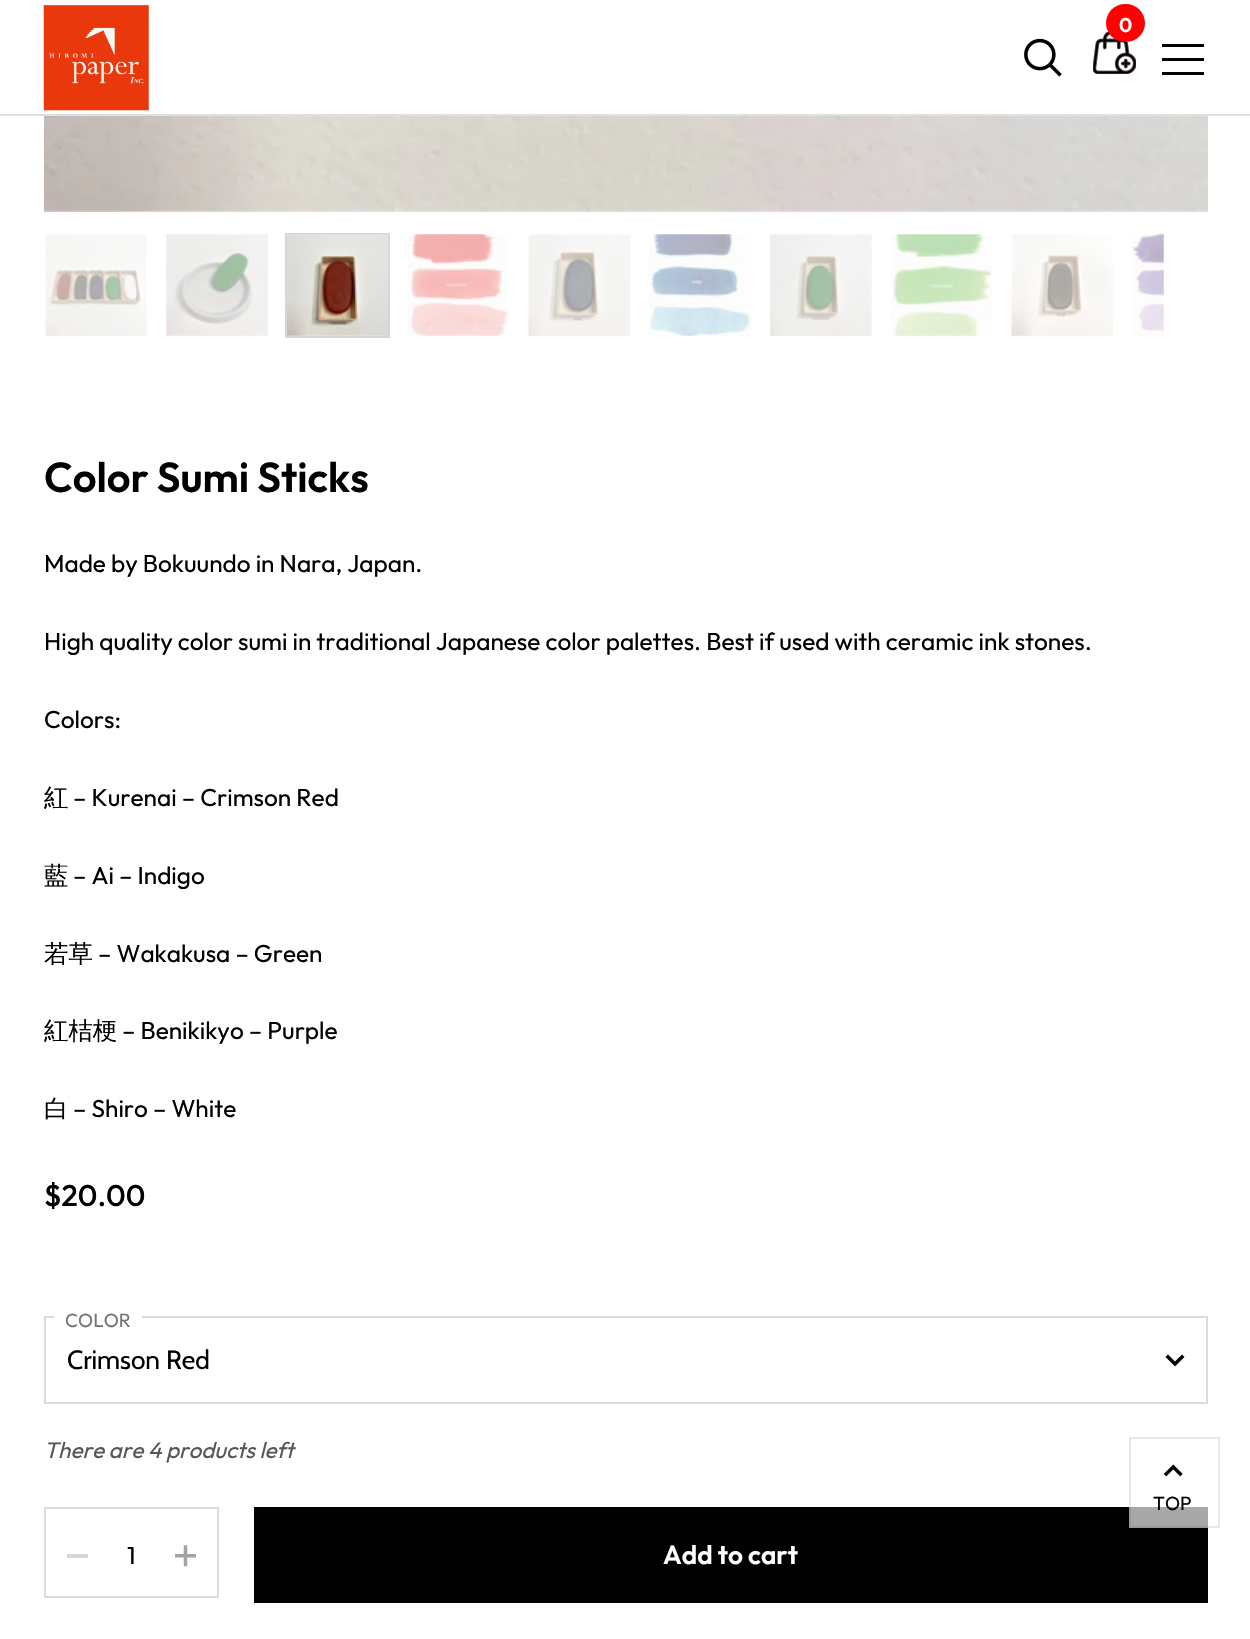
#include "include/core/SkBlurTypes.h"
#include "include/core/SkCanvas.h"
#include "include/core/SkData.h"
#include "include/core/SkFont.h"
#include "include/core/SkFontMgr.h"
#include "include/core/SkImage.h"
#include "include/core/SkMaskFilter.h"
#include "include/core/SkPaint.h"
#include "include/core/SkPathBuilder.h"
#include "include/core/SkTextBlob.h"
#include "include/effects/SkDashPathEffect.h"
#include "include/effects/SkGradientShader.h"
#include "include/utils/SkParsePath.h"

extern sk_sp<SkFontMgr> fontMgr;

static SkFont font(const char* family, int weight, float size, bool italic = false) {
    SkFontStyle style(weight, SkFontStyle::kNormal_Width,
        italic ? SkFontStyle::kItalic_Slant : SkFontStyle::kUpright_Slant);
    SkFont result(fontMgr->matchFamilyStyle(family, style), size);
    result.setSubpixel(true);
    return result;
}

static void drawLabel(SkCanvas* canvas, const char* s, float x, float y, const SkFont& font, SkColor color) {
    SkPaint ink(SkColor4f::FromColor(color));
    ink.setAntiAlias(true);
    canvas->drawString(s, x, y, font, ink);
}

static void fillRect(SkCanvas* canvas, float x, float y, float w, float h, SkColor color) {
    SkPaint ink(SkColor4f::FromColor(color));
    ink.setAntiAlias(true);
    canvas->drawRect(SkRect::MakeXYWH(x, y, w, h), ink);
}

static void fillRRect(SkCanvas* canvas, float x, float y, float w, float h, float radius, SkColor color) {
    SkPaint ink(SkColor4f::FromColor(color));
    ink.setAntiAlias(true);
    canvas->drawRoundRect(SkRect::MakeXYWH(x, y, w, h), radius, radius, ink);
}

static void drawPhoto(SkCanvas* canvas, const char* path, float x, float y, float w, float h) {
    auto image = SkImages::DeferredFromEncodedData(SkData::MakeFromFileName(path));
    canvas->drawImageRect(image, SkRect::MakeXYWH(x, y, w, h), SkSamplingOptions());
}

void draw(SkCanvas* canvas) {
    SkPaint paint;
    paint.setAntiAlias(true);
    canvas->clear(0xFFFFFFFF);
    fillRect(canvas, 0, 114, 1250, 2, 0xFFE0E0E0);
    drawPhoto(canvas, "assets/img1.png", 43, 5, 106, 106);
    drawPhoto(canvas, "assets/img2.png", 1093, 32, 43, 42);
    fillRRect(canvas, 1106, 4, 39, 38, 19, 0xFFFF0000);
    SkFont font1 = font("Outfit", 600, 20);
    drawLabel(canvas, "0", 1119, 32, font1, 0xFFFFFFFF);
    drawPhoto(canvas, "assets/img3.png", 1024, 38, 38, 39);
    fillRect(canvas, 1162, 44, 42, 3, 0xFF000000);
    fillRect(canvas, 1162, 58, 42, 3, 0xFF000000);
    fillRect(canvas, 1162, 72, 42, 3, 0xFF000000);
    fillRect(canvas, 44, 210, 1164, 2, 0xFFF8F8F8);
    drawPhoto(canvas, "assets/img4.png", 44, 116, 1164, 96);
    fillRect(canvas, 46, 235, 101, 101, 0xFFFCFCFC);
    drawPhoto(canvas, "assets/img5.png", 45, 234, 102, 102);
    fillRect(canvas, 166, 235, 102, 101, 0xFFFCFCFC);
    drawPhoto(canvas, "assets/img6.png", 166, 234, 102, 102);
    paint.setStroke(true);
    paint.setStrokeWidth(2);
    paint.setColor(0xFFD6D6D6);
    canvas->drawRect(SkRect::MakeXYWH(286, 234, 103, 103), paint);
    fillRect(canvas, 287, 235, 102, 101, 0x08000000);
    drawPhoto(canvas, "assets/img7.png", 287, 234, 102, 102);
    fillRect(canvas, 408, 235, 101, 101, 0xFFFCFCFC);
    drawPhoto(canvas, "assets/img8.png", 410, 234, 98, 102);
    fillRect(canvas, 529, 235, 101, 101, 0xFFFCFCFC);
    drawPhoto(canvas, "assets/img9.png", 528, 234, 102, 102);
    fillRect(canvas, 649, 235, 102, 101, 0xFFFCFCFC);
    drawPhoto(canvas, "assets/img10.png", 649, 234, 102, 102);
    fillRect(canvas, 770, 235, 102, 101, 0xFFFCFCFC);
    drawPhoto(canvas, "assets/img11.png", 770, 234, 102, 102);
    fillRect(canvas, 891, 235, 101, 101, 0xFFFCFCFC);
    drawPhoto(canvas, "assets/img12.png", 893, 234, 99, 102);
    fillRect(canvas, 1012, 235, 101, 101, 0xFFFCFCFC);
    drawPhoto(canvas, "assets/img13.png", 1011, 234, 102, 102);
    fillRect(canvas, 1132, 235, 32, 101, 0xFFFCFCFC);
    drawPhoto(canvas, "assets/img14.png", 1132, 234, 32, 97);
    SkFont font2 = font("Outfit", 600, 41.75f);
    drawLabel(canvas, "Color Sumi Sticks", 44, 492, font2, 0xFF000000);
    SkFont font3 = font("Outfit", 400, 24.4f);
    drawLabel(canvas, "Made by Bokuundo in Nara, Japan.", 44, 572, font3, 0xFF000000);
    drawLabel(canvas, "High quality color sumi in traditional Japanese color palettes. Best if used with ceramic ink stones.", 44, 650, font3, 0xFF000000);
    drawLabel(canvas, "Colors:", 44, 728, font3, 0xFF000000);
    SkFont font4 = font("WenQuanYi Zen Hei", 500, 24.4f);
    drawLabel(canvas, "紅", 44, 806, font4, 0xFF000000);
    drawLabel(canvas, "– Kurenai – Crimson Red", 73, 806, font3, 0xFF000000);
    drawLabel(canvas, "藍", 44, 884, font4, 0xFF000000);
    drawLabel(canvas, "– Ai – Indigo", 73, 884, font3, 0xFF000000);
    drawLabel(canvas, "若草", 44, 962, font4, 0xFF000000);
    drawLabel(canvas, "– Wakakusa – Green", 98, 962, font3, 0xFF000000);
    drawLabel(canvas, "紅桔梗", 44, 1039, font4, 0xFF000000);
    drawLabel(canvas, "– Benikikyo – Purple", 122, 1039, font3, 0xFF000000);
    drawLabel(canvas, "白", 44, 1117, font4, 0xFF000000);
    drawLabel(canvas, "– Shiro – White", 73, 1117, font3, 0xFF000000);
    SkFont font5 = font("Outfit", 500, 30);
    drawLabel(canvas, "$20.00", 44, 1206, font5, 0xFF000000);
    drawPhoto(canvas, "assets/img15.png", 1165, 1354, 20, 13);
    paint.setColor(0xFFDBDBDB);
    canvas->drawRect(SkRect::MakeXYWH(45, 1317, 1162, 86), paint);
    fillRect(canvas, 54, 1316, 88, 2, 0xFFFFFFFF);
    SkFont font6 = font("Outfit", 400, 19);
    drawLabel(canvas, "COLOR", 65, 1327, font6, 0xFF757575);
    SkFont font7 = font("Cabin", 400, 26.25f);
    drawLabel(canvas, "Crimson Red", 67, 1369, font7, 0xFF000000);
    SkFont font8 = font("Outfit", 400, 22.5f, true);
    drawLabel(canvas, "There are 4 products left", 44, 1458, font8, 0xFF575757);
    canvas->drawRect(SkRect::MakeXYWH(45, 1508, 173, 89), paint);
    fillRect(canvas, 67, 1554, 21, 4, 0xFFD6D6D6);
    drawLabel(canvas, "1", 127, 1564, font3, 0xFF000000);
    drawPhoto(canvas, "assets/img16.png", 175, 1545, 21, 22);
    fillRect(canvas, 254, 1507, 954, 96, 0xFF000000);
    fillRect(canvas, 1129, 1507, 79, 21, 0xFFA8A8A8);
    SkFont font9 = font("Outfit", 600, 26.25f);
    drawLabel(canvas, "Add to cart", 663, 1564, font9, 0xFFFFFFFF);
    paint.setColor(0x17000000);
    canvas->drawRect(SkRect::MakeXYWH(1130, 1438, 89, 89), paint);
    drawPhoto(canvas, "assets/img17.png", 1163, 1464, 20, 13);
    drawLabel(canvas, "TOP", 1153, 1510, font6, 0xFF000000);
}
